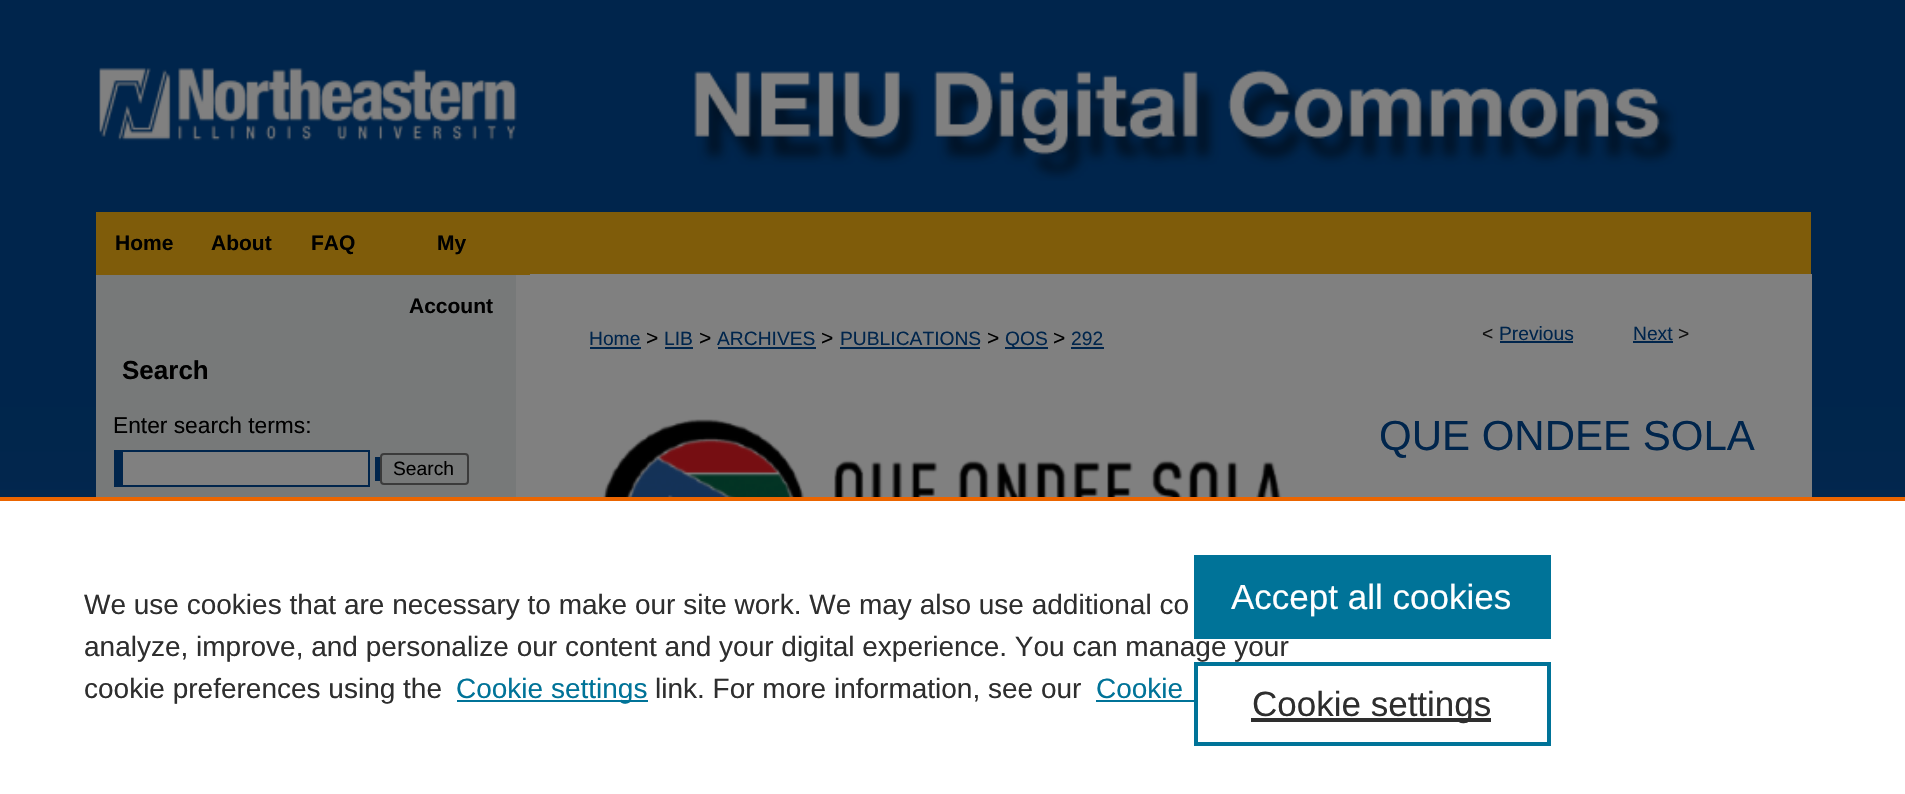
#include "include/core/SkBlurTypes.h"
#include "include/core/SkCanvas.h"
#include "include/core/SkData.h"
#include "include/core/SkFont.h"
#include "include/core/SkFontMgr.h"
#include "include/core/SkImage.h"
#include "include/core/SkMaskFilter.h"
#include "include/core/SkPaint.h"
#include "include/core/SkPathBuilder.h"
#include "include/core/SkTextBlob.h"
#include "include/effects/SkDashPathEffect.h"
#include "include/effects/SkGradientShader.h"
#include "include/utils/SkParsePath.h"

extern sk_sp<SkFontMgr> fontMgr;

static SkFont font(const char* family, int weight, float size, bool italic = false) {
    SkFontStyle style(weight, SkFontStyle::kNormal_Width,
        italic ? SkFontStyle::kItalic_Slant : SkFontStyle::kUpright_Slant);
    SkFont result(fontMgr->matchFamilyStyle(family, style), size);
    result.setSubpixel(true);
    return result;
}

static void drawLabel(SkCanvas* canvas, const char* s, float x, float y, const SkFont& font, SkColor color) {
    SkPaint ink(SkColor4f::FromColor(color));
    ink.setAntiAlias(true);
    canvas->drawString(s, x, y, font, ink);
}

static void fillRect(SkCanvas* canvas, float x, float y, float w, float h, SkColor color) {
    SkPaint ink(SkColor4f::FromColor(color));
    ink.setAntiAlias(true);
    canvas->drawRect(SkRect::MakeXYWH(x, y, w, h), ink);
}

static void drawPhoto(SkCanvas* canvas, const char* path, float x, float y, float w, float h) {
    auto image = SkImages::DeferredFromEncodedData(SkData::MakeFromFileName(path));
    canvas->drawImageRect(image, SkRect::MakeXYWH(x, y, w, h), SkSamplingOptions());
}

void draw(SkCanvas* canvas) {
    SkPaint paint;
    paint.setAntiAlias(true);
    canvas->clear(0xFFFFFFFF);
    drawPhoto(canvas, "assets/img1.png", 0, 0, 1905, 497);
    drawPhoto(canvas, "assets/img2.png", 99, 67, 418, 74);
    drawPhoto(canvas, "assets/img3.png", 694, 69, 984, 112);
    fillRect(canvas, 96, 212, 1715, 63, 0xFF7F5C0A);
    SkFont font1 = font("Liberation Sans", 700, 21);
    drawLabel(canvas, "Home", 115, 250, font1, 0xFF000000);
    drawLabel(canvas, "About", 211, 250, font1, 0xFF000000);
    drawLabel(canvas, "FAQ", 311, 250, font1, 0xFF000000);
    fillRect(canvas, 516, 274, 1296, 223, 0xFF808080);
    fillRect(canvas, 516, 274, 14, 1, 0xFF7F5C0A);
    drawLabel(canvas, "My", 437, 250, font1, 0xFF000000);
    fillRect(canvas, 96, 275, 420, 222, 0xFF777979);
    drawLabel(canvas, "Account", 409, 313, font1, 0xFF000000);
    SkFont font2 = font("Liberation Sans", 700, 26);
    drawLabel(canvas, "Search", 122, 379, font2, 0xFF000000);
    SkFont font3 = font("Liberation Sans", 400, 22.75f);
    drawLabel(canvas, "Enter search terms:", 113, 433, font3, 0xFF000000);
    fillRect(canvas, 114, 450, 256, 37, 0xFF00254C);
    fillRect(canvas, 375, 457, 5, 24, 0xFF00254C);
    fillRect(canvas, 123, 452, 245, 33, 0xFF808080);
    paint.setStroke(true);
    paint.setStrokeWidth(2);
    paint.setColor(0xFF3B3B3B);
    canvas->drawRoundRect(SkRect::MakeXYWH(381, 454, 87, 30), 3, 3, paint);
    SkFont font4 = font("Liberation Sans", 400, 19.25f);
    drawLabel(canvas, "Search", 393, 475, font4, 0xFF000000);
    drawLabel(canvas, "Home", 589, 345, font4, 0xFF00254C);
    fillRect(canvas, 590, 347, 51, 2, 0xFF00254C);
    SkFont font5 = font("Liberation Sans", 400, 21);
    drawLabel(canvas, ">", 646, 345, font5, 0xFF000000);
    drawLabel(canvas, "LIB", 664, 345, font4, 0xFF00254C);
    fillRect(canvas, 665, 347, 28, 2, 0xFF00254C);
    drawLabel(canvas, ">", 699, 345, font5, 0xFF000000);
    drawLabel(canvas, "ARCHIVES", 717, 345, font4, 0xFF00254C);
    fillRect(canvas, 718, 347, 98, 2, 0xFF00254C);
    drawLabel(canvas, ">", 821, 345, font5, 0xFF000000);
    drawLabel(canvas, "PUBLICATIONS", 840, 345, font4, 0xFF00254C);
    fillRect(canvas, 840, 347, 140, 2, 0xFF00254C);
    drawLabel(canvas, ">", 987, 345, font5, 0xFF000000);
    fillRect(canvas, 1005, 347, 43, 2, 0xFF00254C);
    drawLabel(canvas, "QOS", 1005, 345, font4, 0xFF00254C);
    drawLabel(canvas, ">", 1053, 345, font5, 0xFF000000);
    drawLabel(canvas, "292", 1071, 345, font4, 0xFF00254C);
    fillRect(canvas, 1071, 347, 33, 2, 0xFF00254C);
    drawLabel(canvas, "<", 1482, 340, font4, 0xFF111111);
    drawLabel(canvas, "Previous", 1499, 340, font4, 0xFF00254C);
    fillRect(canvas, 1500, 341, 73, 2, 0xFF00254C);
    drawLabel(canvas, "Next", 1633, 340, font4, 0xFF00254C);
    fillRect(canvas, 1633, 341, 40, 2, 0xFF00254C);
    drawLabel(canvas, ">", 1678, 340, font4, 0xFF111111);
    drawPhoto(canvas, "assets/img4.png", 603, 419, 679, 78);
    SkFont font6 = font("Liberation Sans", 400, 42);
    drawLabel(canvas, "QUE ONDEE SOLA", 1379, 450, font6, 0xFF00254C);
    fillRect(canvas, 0, 497, 1905, 4, 0xFFEB6500);
    SkFont font7 = font("Liberation Sans", 400, 28);
    drawLabel(canvas, "We use cookies that are necessary to make our site work. We may also use additional co", 84, 614, font7, 0xFF2E2E2E);
    drawLabel(canvas, "analyze, improve, and personalize our content and your digital experience. You can manage your", 84, 656, font7, 0xFF2E2E2E);
    drawLabel(canvas, "cookie preferences using the", 84, 698, font7, 0xFF2E2E2E);
    fillRect(canvas, 457, 700, 191, 2, 0xFF007398);
    drawLabel(canvas, "Cookie settings", 456, 698, font7, 0xFF007398);
    drawLabel(canvas, "link. For more information, see our", 655, 698, font7, 0xFF2E2E2E);
    drawLabel(canvas, "Cookie", 1096, 698, font7, 0xFF007398);
    fillRect(canvas, 1096, 700, 98, 2, 0xFF007398);
    fillRect(canvas, 1194, 555, 357, 84, 0xFF007398);
    SkFont font8 = font("Liberation Sans", 400, 35);
    drawLabel(canvas, "Accept all cookies", 1231, 609, font8, 0xFFFFFFFF);
    paint.setStrokeWidth(4);
    paint.setColor(0xFF007398);
    canvas->drawRect(SkRect::MakeXYWH(1196, 664, 353, 80), paint);
    fillRect(canvas, 1251, 718, 240, 4, 0xFF2E2E2E);
    drawLabel(canvas, "Cookie settings", 1252, 716, font8, 0xFF2E2E2E);
}
